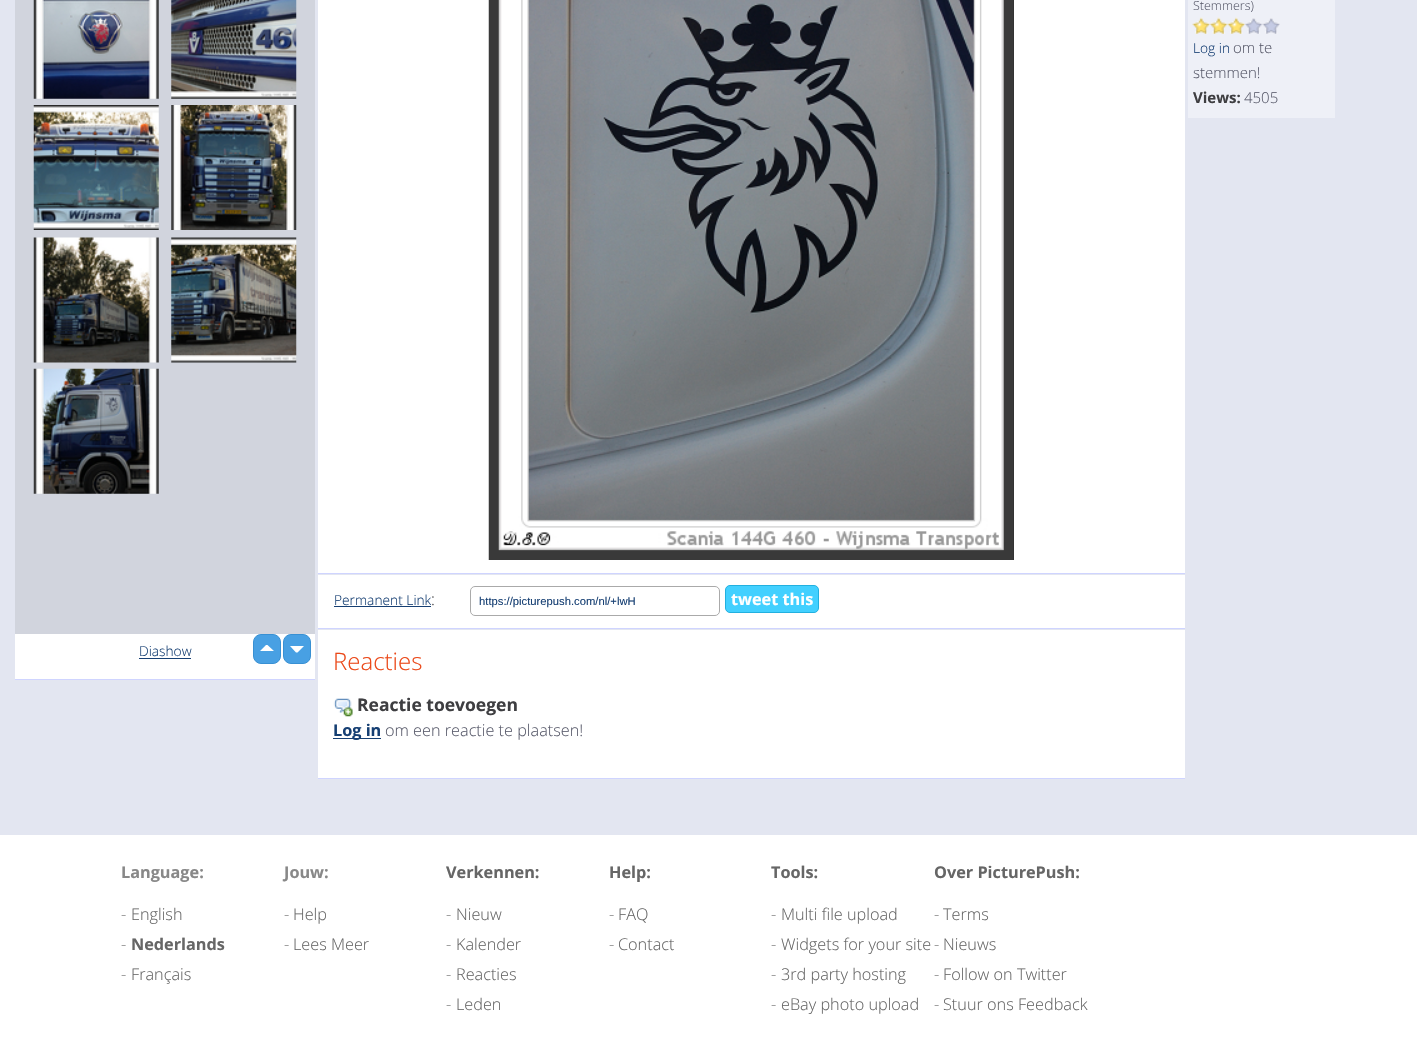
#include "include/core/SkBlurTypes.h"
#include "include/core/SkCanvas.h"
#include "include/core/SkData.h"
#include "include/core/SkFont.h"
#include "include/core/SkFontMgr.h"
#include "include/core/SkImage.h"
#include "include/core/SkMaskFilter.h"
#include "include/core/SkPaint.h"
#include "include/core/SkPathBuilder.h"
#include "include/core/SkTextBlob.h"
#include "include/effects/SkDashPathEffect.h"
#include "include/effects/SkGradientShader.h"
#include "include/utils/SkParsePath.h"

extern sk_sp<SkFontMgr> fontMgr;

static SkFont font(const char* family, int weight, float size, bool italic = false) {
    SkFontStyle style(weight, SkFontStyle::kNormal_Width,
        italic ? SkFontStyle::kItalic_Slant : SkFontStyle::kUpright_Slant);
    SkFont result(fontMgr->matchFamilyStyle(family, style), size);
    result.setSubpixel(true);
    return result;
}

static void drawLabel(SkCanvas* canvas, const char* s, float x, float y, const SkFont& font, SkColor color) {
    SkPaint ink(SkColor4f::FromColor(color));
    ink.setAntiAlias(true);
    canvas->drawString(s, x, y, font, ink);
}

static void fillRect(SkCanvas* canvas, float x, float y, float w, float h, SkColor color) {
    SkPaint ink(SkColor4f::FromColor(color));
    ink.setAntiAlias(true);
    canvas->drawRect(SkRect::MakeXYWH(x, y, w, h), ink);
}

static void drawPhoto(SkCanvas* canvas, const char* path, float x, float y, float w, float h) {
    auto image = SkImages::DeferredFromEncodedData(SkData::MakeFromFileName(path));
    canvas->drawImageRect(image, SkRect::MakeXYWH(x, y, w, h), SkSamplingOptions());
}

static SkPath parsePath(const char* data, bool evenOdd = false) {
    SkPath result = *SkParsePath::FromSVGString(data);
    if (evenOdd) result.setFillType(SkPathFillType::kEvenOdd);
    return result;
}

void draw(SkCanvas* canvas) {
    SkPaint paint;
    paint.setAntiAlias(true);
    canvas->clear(0xFFE3E6F1);
    fillRect(canvas, 15, 0, 300, 634, 0xFFD1D4DD);
    fillRect(canvas, 15, 679, 300, 1, 0xFFCFD4FF);
    drawPhoto(canvas, "assets/img1.png", 33, 0, 126, 99);
    drawPhoto(canvas, "assets/img2.png", 171, 0, 126, 99);
    drawPhoto(canvas, "assets/img3.png", 33, 105, 126, 125);
    drawPhoto(canvas, "assets/img4.png", 171, 105, 126, 125);
    drawPhoto(canvas, "assets/img5.png", 33, 237, 126, 126);
    drawPhoto(canvas, "assets/img6.png", 171, 237, 126, 126);
    drawPhoto(canvas, "assets/img7.png", 33, 368, 126, 126);
    fillRect(canvas, 15, 634, 300, 45, 0xFFFFFFFF);
    paint.setColor(0xFF48A0E3);
    canvas->drawRoundRect(SkRect::MakeXYWH(253.5f, 634.5f, 27, 29), 7.5f, 7.5f, paint);
    paint.setStroke(true);
    paint.setStrokeWidth(1);
    paint.setColor(0xFF3890D3);
    canvas->drawRoundRect(SkRect::MakeXYWH(253.5f, 634.5f, 27, 29), 7.5f, 7.5f, paint);
    paint.setStroke(false);
    paint.setColor(0xFF48A0E3);
    canvas->drawRoundRect(SkRect::MakeXYWH(283.5f, 634.5f, 27, 29), 7.5f, 7.5f, paint);
    paint.setStroke(true);
    paint.setColor(0xFF3890D3);
    canvas->drawRoundRect(SkRect::MakeXYWH(283.5f, 634.5f, 27, 29), 7.5f, 7.5f, paint);
    paint.setStroke(false);
    paint.setColor(0xFFFFFFFF);
    canvas->drawPath(parsePath("M274 651H260L266 645H267.5ZM290 646H304L297.5 652.5H296Z"), paint);
    SkFont font1 = font("Open Sans", 300, 13.75f);
    drawLabel(canvas, "Diashow", 139, 656, font1, 0xFF163F73);
    fillRect(canvas, 139, 658, 52, 1, 0xFF163F73);
    fillRect(canvas, 318, 0, 867, 573, 0xFFFFFFFF);
    fillRect(canvas, 318, 573, 867, 1, 0xFFCFD4FF);
    drawPhoto(canvas, "assets/img8.png", 488, 0, 525, 560);
    fillRect(canvas, 1013, 0, 1, 560, 0xFF333333);
    fillRect(canvas, 1188, 0, 147, 118, 0xFFEEF0F7);
    SkFont font2 = font("Open Sans", 300, 12.5f);
    drawLabel(canvas, "Stemmers)", 1193, 10, font2, 0xFF5A5C6C);
    drawPhoto(canvas, "assets/img9.png", 1192, 17, 18, 17);
    drawPhoto(canvas, "assets/img10.png", 1210, 17, 18, 17);
    drawPhoto(canvas, "assets/img11.png", 1227, 17, 18, 17);
    drawPhoto(canvas, "assets/img12.png", 1245, 18, 18, 16);
    drawPhoto(canvas, "assets/img13.png", 1262, 18, 18, 16);
    drawLabel(canvas, "Log in", 1193, 53, font1, 0xFF163F73);
    SkFont font3 = font("Open Sans", 300, 15);
    drawLabel(canvas, "om te", 1233, 53, font3, 0xFF5A5C6C);
    drawLabel(canvas, "stemmen!", 1193, 78, font3, 0xFF5A5C6C);
    SkFont font4 = font("Open Sans", 700, 15);
    drawLabel(canvas, "Views:", 1193, 103, font4, 0xFF3E3E41);
    drawLabel(canvas, "4505", 1244, 103, font3, 0xFF5A5C6C);
    fillRect(canvas, 318, 575, 867, 53, 0xFFFFFFFF);
    fillRect(canvas, 318, 628, 867, 1, 0xFFCFD4FF);
    drawLabel(canvas, "Permanent Link", 334, 605, font1, 0xFF163F73);
    fillRect(canvas, 334, 606, 97, 1, 0xFF163F73);
    SkFont font5 = font("Open Sans", 300, 16.25f);
    drawLabel(canvas, ":", 431, 605, font5, 0xFF3E3E41);
    paint.setStroke(true);
    paint.setColor(0xFFAAAAAA);
    canvas->drawRoundRect(SkRect::MakeXYWH(470.5f, 586.5f, 249, 29), 4.5f, 4.5f, paint);
    SkFont font6 = font("Liberation Sans", 400, 11.25f);
    drawLabel(canvas, "https://picturepush.com/nl/+lwH", 479, 605, font6, 0xFF163F73);
    paint.setStroke(false);
    paint.setColor(0xFF42D0FF);
    canvas->drawRoundRect(SkRect::MakeXYWH(725.5f, 585.5f, 93, 27), 4.5f, 4.5f, paint);
    paint.setStroke(true);
    paint.setColor(0xFF22B0DF);
    canvas->drawRoundRect(SkRect::MakeXYWH(725.5f, 585.5f, 93, 27), 4.5f, 4.5f, paint);
    SkFont font7 = font("Open Sans", 700, 16.25f);
    drawLabel(canvas, "tweet this", 731, 605, font7, 0xFFFFFFFF);
    fillRect(canvas, 318, 630, 867, 148, 0xFFFFFFFF);
    fillRect(canvas, 318, 778, 867, 1, 0xFFCFD4FF);
    SkFont font8 = font("Open Sans", 300, 24);
    drawLabel(canvas, "Reacties", 333, 670, font8, 0xFFEB4818);
    drawPhoto(canvas, "assets/img14.png", 333, 698, 20, 19);
    SkFont font9 = font("Open Sans", 700, 17.5f);
    drawLabel(canvas, "Reactie toevoegen", 357, 711, font9, 0xFF3E3E41);
    fillRect(canvas, 333, 738, 48, 1, 0xFF163F73);
    drawLabel(canvas, "Log in", 333, 736, font7, 0xFF163F73);
    drawLabel(canvas, "om een reactie te plaatsen!", 385, 736, font5, 0xFF5A5C6C);
    fillRect(canvas, 0, 835, 1417, 209, 0xFFFFFFFF);
    drawLabel(canvas, "Language:", 121, 878, font7, 0xFF888888);
    drawLabel(canvas, "-", 121, 920, font5, 0xFF888888);
    drawLabel(canvas, "English", 131, 920, font5, 0xFF666666);
    drawLabel(canvas, "-", 121, 950, font5, 0xFF888888);
    drawLabel(canvas, "Nederlands", 131, 950, font7, 0xFF666666);
    drawLabel(canvas, "-", 121, 980, font5, 0xFF888888);
    drawLabel(canvas, "Français", 131, 980, font5, 0xFF666666);
    drawLabel(canvas, "Jouw:", 284, 878, font7, 0xFF888888);
    drawLabel(canvas, "-", 284, 920, font5, 0xFF888888);
    drawLabel(canvas, "Help", 293, 920, font5, 0xFF666666);
    drawLabel(canvas, "-", 284, 950, font5, 0xFF888888);
    drawLabel(canvas, "Lees Meer", 293, 950, font5, 0xFF666666);
    drawLabel(canvas, "Verkennen:", 446, 878, font7, 0xFF666666);
    drawLabel(canvas, "-", 446, 920, font5, 0xFF888888);
    drawLabel(canvas, "Nieuw", 456, 920, font5, 0xFF666666);
    drawLabel(canvas, "-", 446, 950, font5, 0xFF888888);
    drawLabel(canvas, "Kalender", 456, 950, font5, 0xFF666666);
    drawLabel(canvas, "-", 446, 980, font5, 0xFF888888);
    drawLabel(canvas, "Reacties", 456, 980, font5, 0xFF666666);
    drawLabel(canvas, "-", 446, 1010, font5, 0xFF888888);
    drawLabel(canvas, "Leden", 456, 1010, font5, 0xFF666666);
    drawLabel(canvas, "Help:", 609, 878, font7, 0xFF666666);
    drawLabel(canvas, "-", 609, 920, font5, 0xFF888888);
    drawLabel(canvas, "FAQ", 618, 920, font5, 0xFF666666);
    drawLabel(canvas, "-", 609, 950, font5, 0xFF888888);
    drawLabel(canvas, "Contact", 618, 950, font5, 0xFF666666);
    drawLabel(canvas, "Tools:", 771, 878, font7, 0xFF666666);
    drawLabel(canvas, "-", 771, 920, font5, 0xFF888888);
    drawLabel(canvas, "Multi file upload", 781, 920, font5, 0xFF666666);
    drawLabel(canvas, "-", 771, 950, font5, 0xFF888888);
    drawLabel(canvas, "Widgets for your site", 781, 950, font5, 0xFF666666);
    drawLabel(canvas, "-", 771, 980, font5, 0xFF888888);
    drawLabel(canvas, "3rd party hosting", 781, 980, font5, 0xFF666666);
    drawLabel(canvas, "-", 771, 1010, font5, 0xFF888888);
    drawLabel(canvas, "eBay photo upload", 781, 1010, font5, 0xFF666666);
    drawLabel(canvas, "Over PicturePush:", 934, 878, font7, 0xFF666666);
    drawLabel(canvas, "-", 934, 920, font5, 0xFF888888);
    drawLabel(canvas, "Terms", 943, 920, font5, 0xFF666666);
    drawLabel(canvas, "-", 934, 950, font5, 0xFF888888);
    drawLabel(canvas, "Nieuws", 943, 950, font5, 0xFF666666);
    drawLabel(canvas, "-", 934, 980, font5, 0xFF888888);
    drawLabel(canvas, "Follow on Twitter", 943, 980, font5, 0xFF666666);
    drawLabel(canvas, "-", 934, 1010, font5, 0xFF888888);
    drawLabel(canvas, "Stuur ons Feedback", 943, 1010, font5, 0xFF666666);
}
